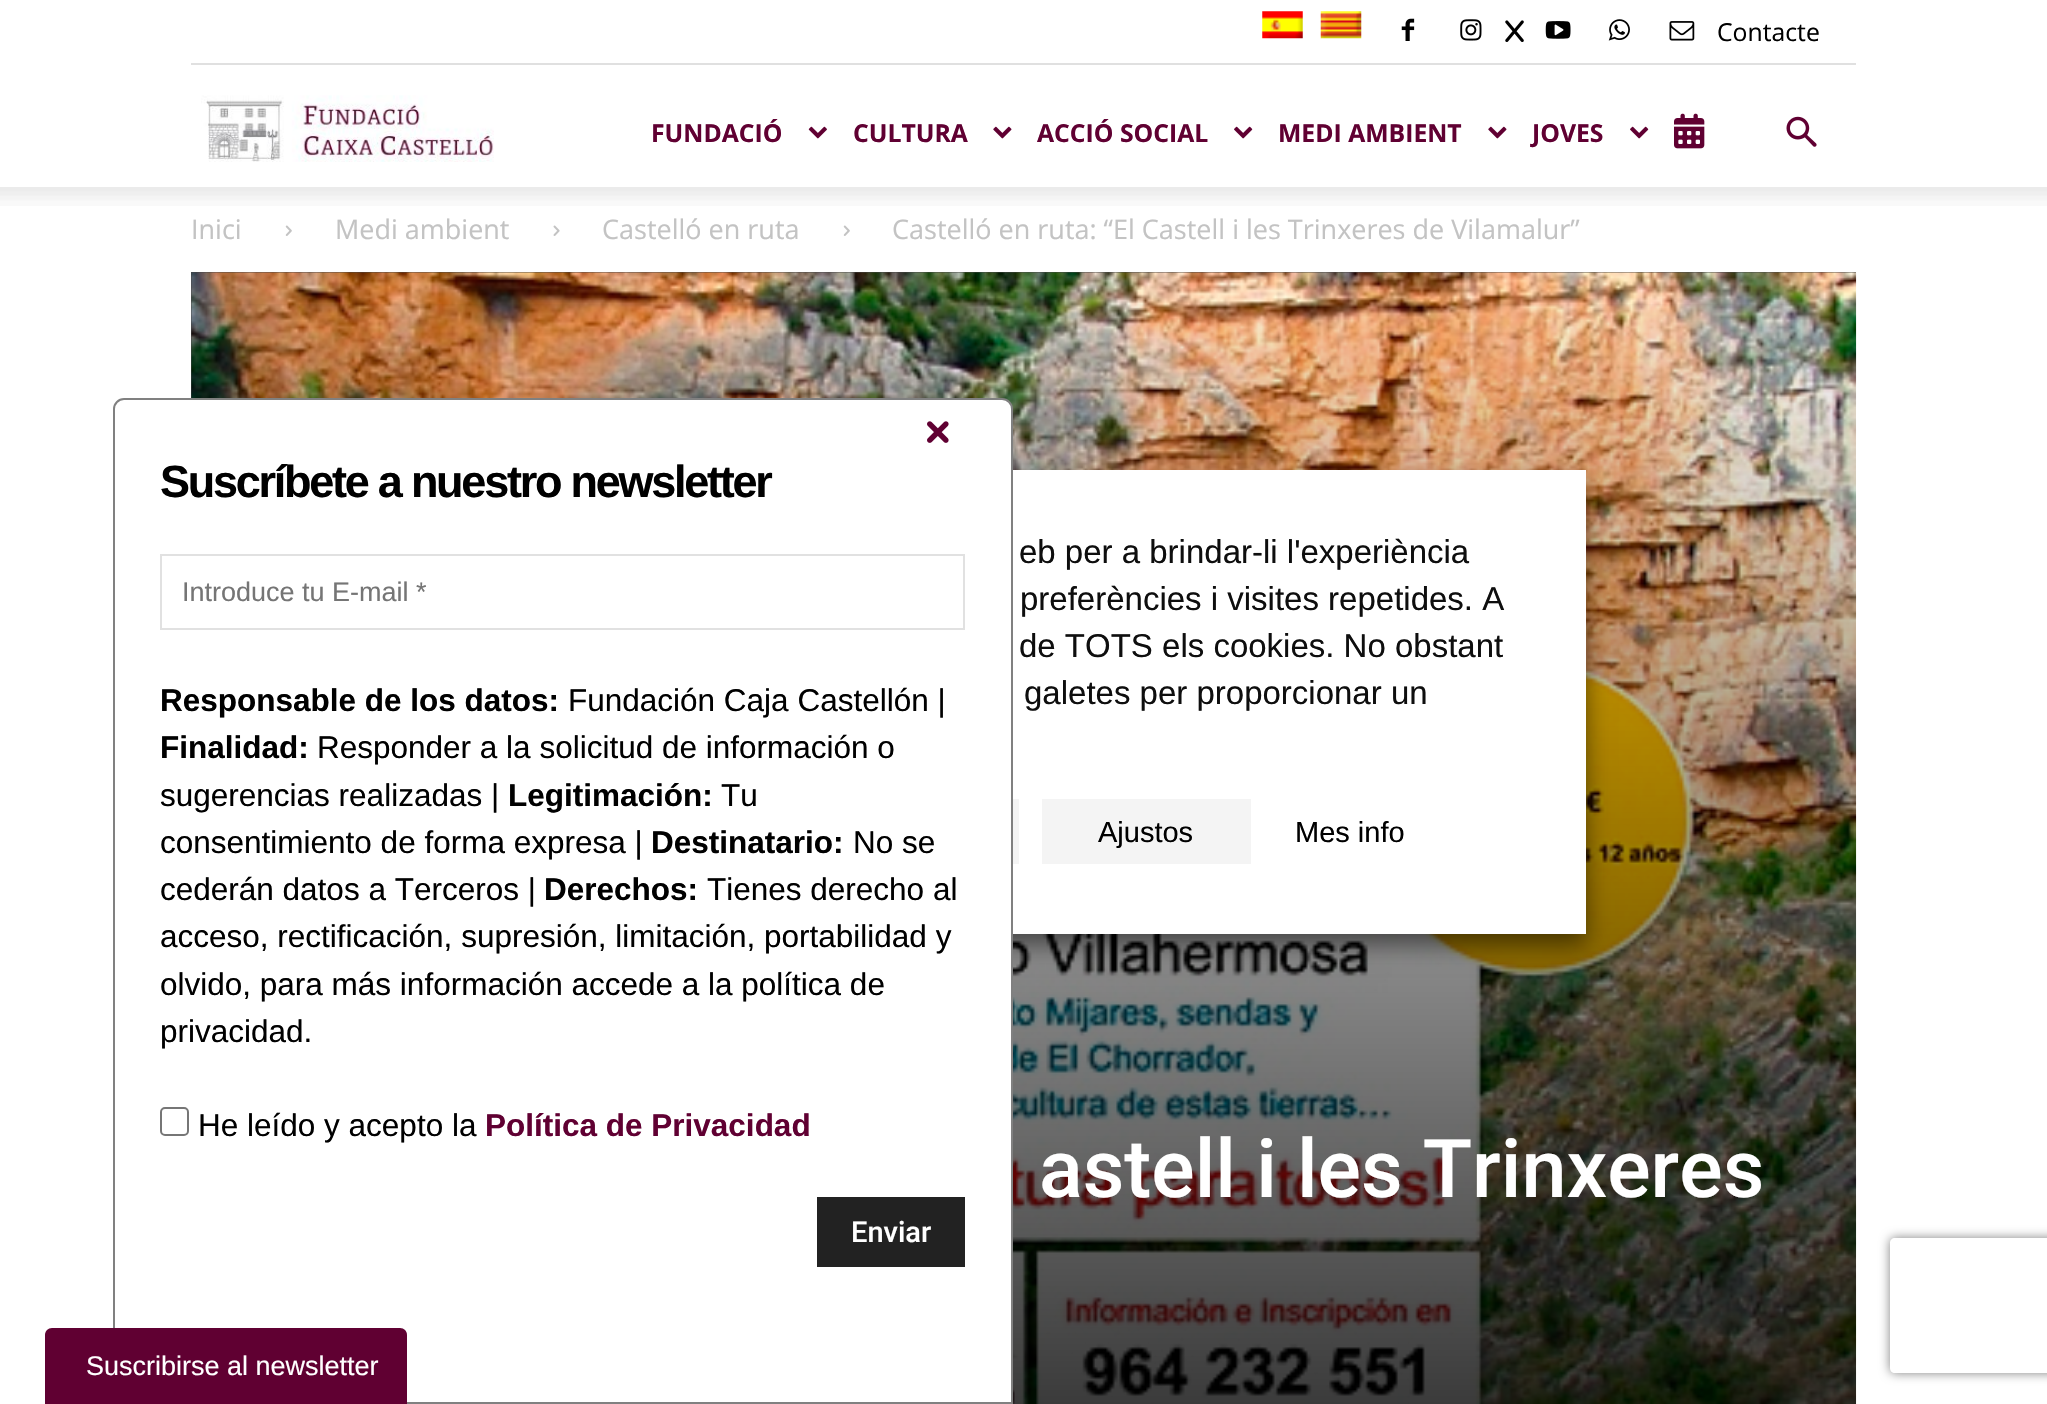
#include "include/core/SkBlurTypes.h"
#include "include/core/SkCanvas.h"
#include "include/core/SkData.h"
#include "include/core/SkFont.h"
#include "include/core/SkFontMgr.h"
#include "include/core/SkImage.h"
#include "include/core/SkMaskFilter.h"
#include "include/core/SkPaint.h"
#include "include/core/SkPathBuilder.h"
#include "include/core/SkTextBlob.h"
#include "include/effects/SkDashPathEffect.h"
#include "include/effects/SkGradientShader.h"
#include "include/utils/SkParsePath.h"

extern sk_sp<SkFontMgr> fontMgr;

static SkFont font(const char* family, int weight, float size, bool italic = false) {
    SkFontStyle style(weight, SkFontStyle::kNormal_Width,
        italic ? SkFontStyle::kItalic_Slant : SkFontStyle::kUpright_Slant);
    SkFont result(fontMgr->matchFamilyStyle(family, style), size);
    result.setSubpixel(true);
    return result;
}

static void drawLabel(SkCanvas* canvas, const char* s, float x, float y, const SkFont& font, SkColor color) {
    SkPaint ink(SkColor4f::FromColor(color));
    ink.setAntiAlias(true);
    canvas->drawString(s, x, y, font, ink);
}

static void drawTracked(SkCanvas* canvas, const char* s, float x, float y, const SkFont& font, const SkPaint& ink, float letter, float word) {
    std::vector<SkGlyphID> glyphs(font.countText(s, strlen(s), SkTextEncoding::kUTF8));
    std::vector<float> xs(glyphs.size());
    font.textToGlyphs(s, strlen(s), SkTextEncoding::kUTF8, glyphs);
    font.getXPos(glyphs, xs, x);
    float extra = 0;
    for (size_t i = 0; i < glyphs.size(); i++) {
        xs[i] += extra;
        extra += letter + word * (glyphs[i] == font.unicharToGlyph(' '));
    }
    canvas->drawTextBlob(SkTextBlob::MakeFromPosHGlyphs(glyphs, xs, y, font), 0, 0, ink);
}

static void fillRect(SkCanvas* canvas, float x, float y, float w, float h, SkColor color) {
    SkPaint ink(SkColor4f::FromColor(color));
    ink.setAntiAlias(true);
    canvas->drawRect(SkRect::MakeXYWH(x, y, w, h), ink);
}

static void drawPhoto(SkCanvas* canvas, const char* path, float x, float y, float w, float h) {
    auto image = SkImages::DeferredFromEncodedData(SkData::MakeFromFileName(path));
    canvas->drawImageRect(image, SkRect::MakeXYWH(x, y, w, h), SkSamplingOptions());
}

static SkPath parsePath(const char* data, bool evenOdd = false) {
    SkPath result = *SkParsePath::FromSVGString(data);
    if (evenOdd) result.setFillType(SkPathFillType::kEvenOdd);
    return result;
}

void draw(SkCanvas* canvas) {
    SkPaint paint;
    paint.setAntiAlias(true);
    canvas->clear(0xFFFFFFFF);
    fillRect(canvas, 191, 63, 1665, 2, 0xFFE0E0E0);
    drawPhoto(canvas, "assets/img1.png", 1262, 11, 41, 28);
    drawPhoto(canvas, "assets/img2.png", 1320, 11, 42, 28);
    drawPhoto(canvas, "assets/img3.png", 1401, 18, 14, 23);
    drawPhoto(canvas, "assets/img4.png", 1460, 19, 22, 22);
    drawPhoto(canvas, "assets/img5.png", 1505, 20, 19, 22);
    drawPhoto(canvas, "assets/img6.png", 1545, 21, 26, 18);
    drawPhoto(canvas, "assets/img7.png", 1608, 19, 22, 22);
    drawPhoto(canvas, "assets/img8.png", 1669, 21, 26, 20);
    SkFont font1 = font("Open Sans", 400, 24.75f);
    drawLabel(canvas, "Contacte", 1717, 41, font1, 0xFF000000);
    drawPhoto(canvas, "assets/img9.png", 201, 95, 293, 67);
    SkFont font2 = font("Open Sans", 700, 24.75f);
    drawLabel(canvas, "FUNDACIÓ", 651, 142, font2, 0xFF600032);
    drawPhoto(canvas, "assets/img10.png", 808, 126, 19, 13);
    drawLabel(canvas, "CULTURA", 853, 142, font2, 0xFF600032);
    drawPhoto(canvas, "assets/img11.png", 993, 126, 19, 13);
    drawLabel(canvas, "ACCIÓ SOCIAL", 1037, 142, font2, 0xFF600032);
    drawPhoto(canvas, "assets/img12.png", 1234, 126, 19, 13);
    drawLabel(canvas, "MEDI AMBIENT", 1278, 142, font2, 0xFF600032);
    drawPhoto(canvas, "assets/img11.png", 1488, 126, 19, 13);
    drawLabel(canvas, "JOVES", 1532, 142, font2, 0xFF600032);
    drawPhoto(canvas, "assets/img12.png", 1630, 126, 19, 13);
    drawPhoto(canvas, "assets/img13.png", 1674, 113, 31, 36);
    drawPhoto(canvas, "assets/img14.png", 1786, 116, 31, 31);
    drawPhoto(canvas, "assets/img15.png", 0, 187, 2047, 19);
    SkFont font3 = font("Open Sans", 400, 27);
    drawLabel(canvas, "Inici", 191, 239, font3, 0xFFC3C3C3);
    drawPhoto(canvas, "assets/img16.png", 285, 225, 7, 11);
    drawLabel(canvas, "Medi ambient", 335, 239, font3, 0xFFC3C3C3);
    drawPhoto(canvas, "assets/img17.png", 553, 225, 7, 11);
    drawLabel(canvas, "Castelló en ruta", 602, 239, font3, 0xFFC3C3C3);
    drawPhoto(canvas, "assets/img16.png", 843, 225, 7, 11);
    drawLabel(canvas, "Castelló en ruta: “El Castell i les Trinxeres de Vilamalur”", 892, 239, font3, 0xFFC3C3C3);
    fillRect(canvas, 191, 272, 1665, 126, 0xFF444444);
    drawPhoto(canvas, "assets/img18.png", 191, 272, 1666, 1132);
    {
        const SkColor colors[] = {0x00000000, 0xCC000000};
        const float stops[] = {0, 1};
        const SkPoint ends[] = {{1024, 272}, {1024, 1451}};
        paint.setShader(SkGradientShader::MakeLinear(ends, colors, stops, 2, SkTileMode::kClamp));
        paint.setAlpha(255);
    }
    canvas->drawRect(SkRect::MakeXYWH(191, 304, 1665, 1100), paint);
    SkFont font4 = font("Roboto", 500, 81);
    drawLabel(canvas, "astell i les Trinxeres", 1039, 1197, font4, 0xFFFFFFFF);
    paint.setShader(nullptr);
    paint.setColor(0x80000000);
    paint.setMaskFilter(SkMaskFilter::MakeBlur(kNormal_SkBlurStyle, 11));
    canvas->drawRect(SkRect::MakeXYWH(461, 482, 1125, 463), paint);
    paint.setMaskFilter(nullptr);
    paint.setColor(0xFFFFFFFF);
    canvas->drawPath(parsePath("M124 399H1002C1007.5 399 1012 403.5 1012 409V1403H114V409C114 403.5 118.5 399 124 399Z"), paint);
    paint.setStroke(true);
    paint.setStrokeWidth(2);
    paint.setColor(0xFF808080);
    canvas->drawPath(parsePath("M124 399H1002C1007.5 399 1012 403.5 1012 409V1403H114V409C114 403.5 118.5 399 124 399Z"), paint);
    drawPhoto(canvas, "assets/img19.png", 927, 421, 22, 22);
    SkFont font5 = font("Liberation Sans", 700, 45);
    paint.setStroke(false);
    paint.setColor(0xFF000000);
    drawTracked(canvas, "Suscríbete a nuestro newsletter", 160, 497, font5, paint, -2.25f, 0);
    paint.setStroke(true);
    paint.setColor(0xFFE1E1E1);
    canvas->drawRect(SkRect::MakeXYWH(161, 555, 803, 74), paint);
    SkFont font6 = font("Liberation Sans", 400, 27);
    drawLabel(canvas, "Introduce tu E-mail *", 182, 601, font6, 0xFF757575);
    SkFont font7 = font("Liberation Sans", 700, 31.5f);
    drawLabel(canvas, "Responsable de los datos:", 160, 711, font7, 0xFF000000);
    SkFont font8 = font("Liberation Sans", 400, 31.5f);
    drawLabel(canvas, "Fundación Caja Castellón |", 568, 711, font8, 0xFF000000);
    drawLabel(canvas, "Finalidad:", 160, 758, font7, 0xFF000000);
    drawLabel(canvas, "Responder a la solicitud de información o", 317, 758, font8, 0xFF000000);
    drawLabel(canvas, "sugerencias realizadas |", 160, 806, font8, 0xFF000000);
    drawLabel(canvas, "Legitimación:", 508, 806, font7, 0xFF000000);
    drawLabel(canvas, "Tu", 721, 806, font8, 0xFF000000);
    drawLabel(canvas, "consentimiento de forma expresa |", 160, 853, font8, 0xFF000000);
    drawLabel(canvas, "Destinatario:", 651, 853, font7, 0xFF000000);
    drawLabel(canvas, "No se", 853, 853, font8, 0xFF000000);
    drawLabel(canvas, "cederán datos a Terceros |", 160, 900, font8, 0xFF000000);
    drawLabel(canvas, "Derechos:", 544, 900, font7, 0xFF000000);
    drawLabel(canvas, "Tienes derecho al", 707, 900, font8, 0xFF000000);
    drawLabel(canvas, "acceso, rectificación, supresión, limitación, portabilidad y", 160, 947, font8, 0xFF000000);
    drawLabel(canvas, "olvido, para más información accede a la política de", 160, 995, font8, 0xFF000000);
    drawLabel(canvas, "privacidad.", 160, 1042, font8, 0xFF000000);
    paint.setColor(0xFF767676);
    canvas->drawRoundRect(SkRect::MakeXYWH(161, 1108, 27, 27), 4, 4, paint);
    drawLabel(canvas, "He leído y acepto la", 198, 1136, font8, 0xFF000000);
    drawLabel(canvas, "Política de Privacidad", 485, 1136, font7, 0xFF600032);
    fillRect(canvas, 817, 1197, 148, 70, 0xFF222222);
    SkFont font9 = font("Roboto", 500, 29);
    drawLabel(canvas, "Enviar", 851, 1242, font9, 0xFFFFFFFF);
    fillRect(canvas, 1013, 470, 573, 464, 0xFFFFFFFF);
    SkFont font10 = font("Liberation Sans", 400, 33);
    drawLabel(canvas, "eb per a brindar-li l'experiència", 1019, 563, font10, 0xFF0E0E0E);
    drawLabel(canvas, "preferències i visites repetides. A", 1020, 610, font10, 0xFF0E0E0E);
    drawLabel(canvas, "de TOTS els cookies. No obstant", 1019, 657, font10, 0xFF0E0E0E);
    drawLabel(canvas, "galetes per proporcionar un", 1024, 704, font10, 0xFF0E0E0E);
    fillRect(canvas, 1013, 799, 6, 65, 0xFFF4F4F4);
    fillRect(canvas, 1042, 799, 209, 65, 0xFFF4F4F4);
    SkFont font11 = font("Liberation Sans", 400, 29);
    drawLabel(canvas, "Ajustos", 1098, 842, font11, 0xFF000000);
    drawLabel(canvas, "Mes info", 1295, 842, font11, 0xFF000000);
    paint.setStroke(false);
    paint.setColor(0xFF600032);
    canvas->drawPath(parsePath("M52 1328H400C404 1328 407 1331 407 1335V1404H45V1335C45 1331 48 1328 52 1328Z"), paint);
    drawLabel(canvas, "Suscribirse al newsletter", 86, 1375, font6, 0xFFFFFFFF);
    canvas->save();
    canvas->clipPath(parsePath("M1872 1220H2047V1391H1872ZM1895 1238H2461C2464 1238 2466 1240 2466 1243V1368C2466 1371 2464 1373 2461 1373H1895C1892 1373 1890 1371 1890 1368V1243C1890 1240 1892 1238 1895 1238Z", true), true);
    paint.setColor(0xFF808080);
    paint.setMaskFilter(SkMaskFilter::MakeBlur(kNormal_SkBlurStyle, 5.5f));
    canvas->drawRoundRect(SkRect::MakeXYWH(1890, 1238, 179, 135), 5, 5, paint);
    paint.setMaskFilter(nullptr);
    canvas->restore();
}
